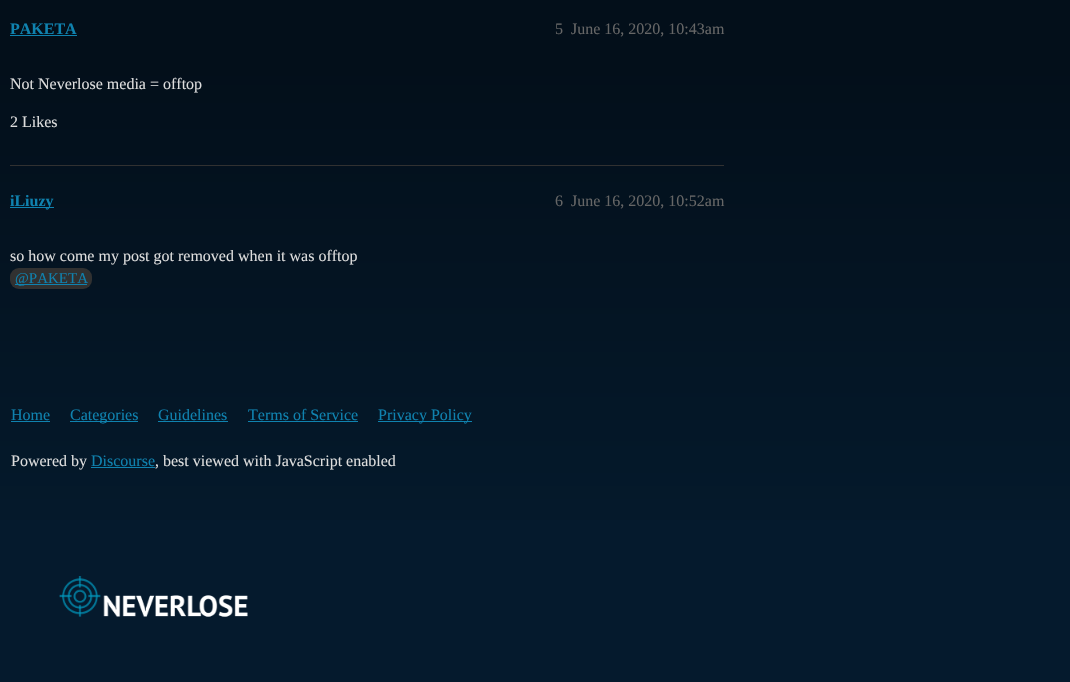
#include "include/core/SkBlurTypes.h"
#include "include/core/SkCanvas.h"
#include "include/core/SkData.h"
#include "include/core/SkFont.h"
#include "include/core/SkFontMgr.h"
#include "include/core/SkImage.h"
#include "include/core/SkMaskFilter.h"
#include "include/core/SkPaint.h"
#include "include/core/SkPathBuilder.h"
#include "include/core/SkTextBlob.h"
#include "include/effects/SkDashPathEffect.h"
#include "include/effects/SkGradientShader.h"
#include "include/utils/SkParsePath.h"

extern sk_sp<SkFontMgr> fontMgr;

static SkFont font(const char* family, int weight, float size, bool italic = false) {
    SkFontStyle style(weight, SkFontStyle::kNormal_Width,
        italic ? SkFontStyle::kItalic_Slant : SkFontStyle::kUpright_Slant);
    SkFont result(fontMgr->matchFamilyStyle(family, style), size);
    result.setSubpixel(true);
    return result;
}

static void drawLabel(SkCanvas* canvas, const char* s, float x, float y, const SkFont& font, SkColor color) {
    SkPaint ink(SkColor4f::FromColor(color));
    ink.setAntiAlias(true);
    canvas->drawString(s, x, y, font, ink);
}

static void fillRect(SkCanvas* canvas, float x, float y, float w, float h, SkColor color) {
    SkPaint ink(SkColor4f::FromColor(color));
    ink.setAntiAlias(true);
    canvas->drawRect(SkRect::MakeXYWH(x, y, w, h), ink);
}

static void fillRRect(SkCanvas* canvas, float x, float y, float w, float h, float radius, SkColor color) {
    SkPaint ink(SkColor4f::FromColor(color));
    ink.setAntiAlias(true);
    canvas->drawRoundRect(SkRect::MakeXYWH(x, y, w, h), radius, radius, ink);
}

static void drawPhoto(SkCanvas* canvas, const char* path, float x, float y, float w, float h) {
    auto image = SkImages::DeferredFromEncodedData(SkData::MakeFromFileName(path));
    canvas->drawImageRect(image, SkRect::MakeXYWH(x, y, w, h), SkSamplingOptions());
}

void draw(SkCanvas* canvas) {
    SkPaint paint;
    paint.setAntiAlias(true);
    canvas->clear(0xFFFFFFFF);
    {
        const SkColor colors[] = {0xFF030F1A, 0xFF030F1A, 0xFF06223A};
        const float stops[] = {0.3f, 0.5f, 1};
        const SkPoint ends[] = {{535, -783}, {535, 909}};
        paint.setShader(SkGradientShader::MakeLinear(ends, colors, stops, 3, SkTileMode::kClamp));
        paint.setAlpha(255);
    }
    canvas->drawRect(SkRect::MakeXYWH(0, 0, 1070, 520), paint);
    SkFont font1 = font("Liberation Serif", 700, 16);
    drawLabel(canvas, "PAKETA", 10, 34, font1, 0xFF0F82AF);
    fillRect(canvas, 10, 35, 67, 1, 0xFF0F82AF);
    SkFont font2 = font("Liberation Serif", 400, 16);
    drawLabel(canvas, "5", 555, 34, font2, 0xFF666666);
    drawLabel(canvas, "June 16, 2020, 10:43am", 571, 34, font2, 0xFF666666);
    drawLabel(canvas, "Not Neverlose media = offtop", 10, 89, font2, 0xFFDDDDDD);
    drawLabel(canvas, "2 Likes", 10, 127, font2, 0xFFDDDDDD);
    fillRect(canvas, 10, 165, 714, 1, 0xFF313131);
    fillRect(canvas, 10, 207, 44, 1, 0xFF0F82AF);
    drawLabel(canvas, "iLiuzy", 10, 206, font1, 0xFF0F82AF);
    drawLabel(canvas, "6", 555, 206, font2, 0xFF666666);
    drawLabel(canvas, "June 16, 2020, 10:52am", 571, 206, font2, 0xFF666666);
    drawLabel(canvas, "so how come my post got removed when it was offtop", 10, 261, font2, 0xFFDDDDDD);
    fillRRect(canvas, 10, 268, 82, 21, 9, 0xFF313131);
    fillRect(canvas, 15, 284, 72, 1, 0xFF0F82AF);
    SkFont font3 = font("Liberation Serif", 400, 15);
    drawLabel(canvas, "@PAKETA", 15, 283, font3, 0xFF0F82AF);
    drawLabel(canvas, "Home", 11, 420, font2, 0xFF0F82AF);
    fillRect(canvas, 11, 421, 39, 1, 0xFF0F82AF);
    fillRect(canvas, 70, 421, 68, 1, 0xFF0F82AF);
    drawLabel(canvas, "Categories", 70, 420, font2, 0xFF0F82AF);
    drawLabel(canvas, "Guidelines", 158, 420, font2, 0xFF0F82AF);
    fillRect(canvas, 158, 421, 70, 1, 0xFF0F82AF);
    drawLabel(canvas, "Terms of Service", 248, 420, font2, 0xFF0F82AF);
    fillRect(canvas, 248, 421, 110, 1, 0xFF0F82AF);
    fillRect(canvas, 378, 421, 94, 1, 0xFF0F82AF);
    drawLabel(canvas, "Privacy Policy", 378, 420, font2, 0xFF0F82AF);
    drawLabel(canvas, "Powered by", 11, 466, font2, 0xFFDDDDDD);
    drawLabel(canvas, "Discourse", 91, 466, font2, 0xFF0F82AF);
    fillRect(canvas, 91, 467, 64, 1, 0xFF0F82AF);
    drawLabel(canvas, ", best viewed with JavaScript enabled", 155, 466, font2, 0xFFDDDDDD);
    fillRect(canvas, 0, 520, 1070, 162, 0xFF051A2D);
    drawPhoto(canvas, "assets/img1.png", 59, 576, 189, 41);
}
